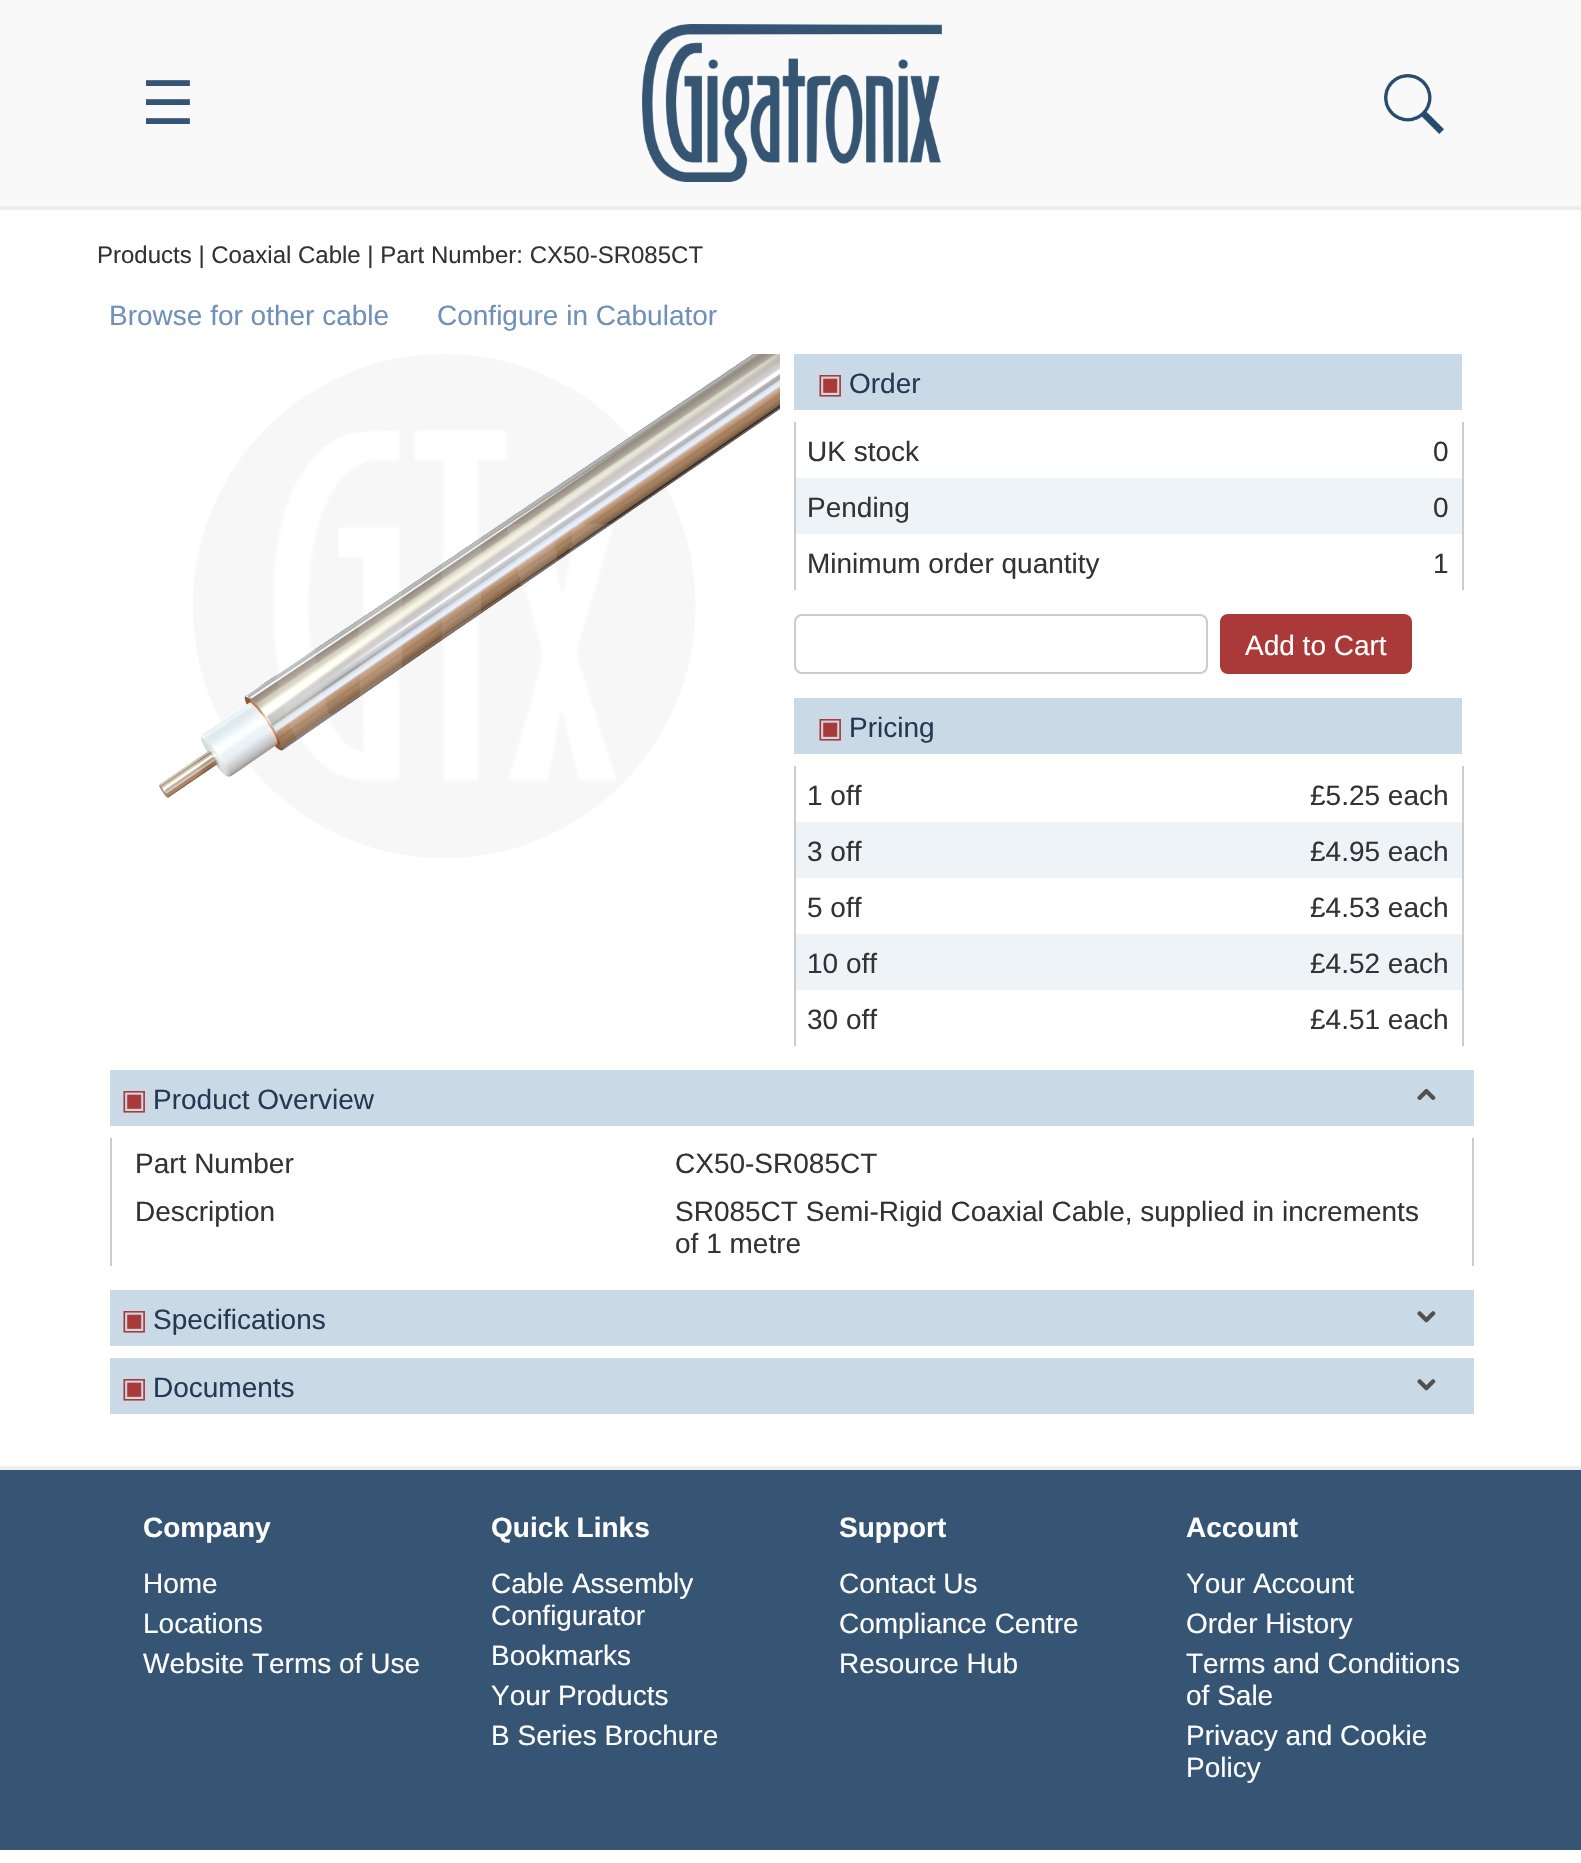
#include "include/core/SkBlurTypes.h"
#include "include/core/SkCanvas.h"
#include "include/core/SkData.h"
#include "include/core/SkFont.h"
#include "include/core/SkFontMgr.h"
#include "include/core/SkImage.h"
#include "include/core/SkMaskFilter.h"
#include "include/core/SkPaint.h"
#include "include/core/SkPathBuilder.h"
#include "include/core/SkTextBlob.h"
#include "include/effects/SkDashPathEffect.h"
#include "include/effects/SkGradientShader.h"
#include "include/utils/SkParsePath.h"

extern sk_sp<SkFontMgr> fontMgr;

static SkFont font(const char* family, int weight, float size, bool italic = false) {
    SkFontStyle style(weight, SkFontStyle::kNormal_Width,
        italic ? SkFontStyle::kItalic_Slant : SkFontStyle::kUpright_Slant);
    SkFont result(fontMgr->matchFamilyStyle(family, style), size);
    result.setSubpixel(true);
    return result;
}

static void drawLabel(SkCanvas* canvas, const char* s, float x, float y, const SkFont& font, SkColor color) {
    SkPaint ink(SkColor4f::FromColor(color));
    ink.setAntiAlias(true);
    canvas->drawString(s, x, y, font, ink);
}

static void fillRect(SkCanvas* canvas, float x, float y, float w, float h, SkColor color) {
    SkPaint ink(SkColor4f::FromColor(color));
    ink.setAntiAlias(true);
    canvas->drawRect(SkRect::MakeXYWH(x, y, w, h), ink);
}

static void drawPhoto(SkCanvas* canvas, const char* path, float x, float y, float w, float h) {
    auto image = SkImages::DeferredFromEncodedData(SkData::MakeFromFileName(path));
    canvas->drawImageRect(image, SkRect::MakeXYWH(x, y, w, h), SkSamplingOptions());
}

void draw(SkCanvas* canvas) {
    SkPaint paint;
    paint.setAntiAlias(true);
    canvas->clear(0xFFFFFFFF);
    fillRect(canvas, 0, 0, 1581, 206, 0xFFF9F9F9);
    fillRect(canvas, 0, 206, 1581, 4, 0xFFEEEEEE);
    SkFont font1 = font("DejaVu Sans", 400, 60);
    drawLabel(canvas, "☰", 141, 124, font1, 0xFF365473);
    drawPhoto(canvas, "assets/img1.png", 642, 24, 300, 158);
    drawPhoto(canvas, "assets/img2.png", 1384, 74, 60, 60);
    SkFont font2 = font("Liberation Sans", 400, 24);
    drawLabel(canvas, "Products | Coaxial Cable | Part Number: CX50-SR085CT", 97, 263, font2, 0xFF333333);
    SkFont font3 = font("Liberation Sans", 400, 28);
    drawLabel(canvas, "Browse for other cable", 109, 325, font3, 0xFF6F90BA);
    drawLabel(canvas, "Configure in Cabulator", 437, 325, font3, 0xFF6F90BA);
    drawPhoto(canvas, "assets/img3.png", 159, 354, 621, 504);
    fillRect(canvas, 794, 354, 668, 56, 0xFFC9D9E5);
    SkFont font4 = font("DejaVu Sans", 400, 28);
    drawLabel(canvas, "▣", 817, 393, font4, 0xFFAA3939);
    drawLabel(canvas, "Order", 849, 393, font3, 0xFF243A54);
    fillRect(canvas, 1462, 422, 2, 168, 0xFFCCCCCC);
    fillRect(canvas, 794, 422, 2, 168, 0xFFCCCCCC);
    drawLabel(canvas, "UK stock", 807, 461, font3, 0xFF333333);
    drawLabel(canvas, "0", 1433, 461, font3, 0xFF333333);
    fillRect(canvas, 796, 478, 666, 56, 0xFFEDF3F7);
    drawLabel(canvas, "Pending", 807, 517, font3, 0xFF333333);
    drawLabel(canvas, "0", 1433, 517, font3, 0xFF333333);
    drawLabel(canvas, "Minimum order quantity", 807, 573, font3, 0xFF333333);
    drawLabel(canvas, "1", 1433, 573, font3, 0xFF333333);
    paint.setStroke(true);
    paint.setStrokeWidth(2);
    paint.setColor(0xFFCCCCCC);
    canvas->drawRoundRect(SkRect::MakeXYWH(795, 615, 412, 58), 7, 7, paint);
    paint.setStroke(false);
    paint.setColor(0xFFAA3939);
    canvas->drawRoundRect(SkRect::MakeXYWH(1221, 615, 190, 58), 7, 7, paint);
    paint.setStroke(true);
    canvas->drawRoundRect(SkRect::MakeXYWH(1221, 615, 190, 58), 7, 7, paint);
    drawLabel(canvas, "Add to Cart", 1245, 655, font3, 0xFFFFFFFF);
    fillRect(canvas, 794, 698, 668, 56, 0xFFC9D9E5);
    drawLabel(canvas, "▣", 817, 737, font4, 0xFFAA3939);
    drawLabel(canvas, "Pricing", 849, 737, font3, 0xFF243A54);
    fillRect(canvas, 1462, 766, 2, 280, 0xFFCCCCCC);
    fillRect(canvas, 794, 766, 2, 280, 0xFFCCCCCC);
    drawLabel(canvas, "1 off", 807, 805, font3, 0xFF333333);
    drawLabel(canvas, "£5.25 each", 1310, 805, font3, 0xFF333333);
    fillRect(canvas, 796, 822, 666, 56, 0xFFEDF3F7);
    drawLabel(canvas, "3 off", 807, 861, font3, 0xFF333333);
    drawLabel(canvas, "£4.95 each", 1310, 861, font3, 0xFF333333);
    drawLabel(canvas, "5 off", 807, 917, font3, 0xFF333333);
    drawLabel(canvas, "£4.53 each", 1310, 917, font3, 0xFF333333);
    fillRect(canvas, 796, 934, 666, 56, 0xFFEDF3F7);
    drawLabel(canvas, "10 off", 807, 973, font3, 0xFF333333);
    drawLabel(canvas, "£4.52 each", 1310, 973, font3, 0xFF333333);
    drawLabel(canvas, "30 off", 807, 1029, font3, 0xFF333333);
    drawLabel(canvas, "£4.51 each", 1310, 1029, font3, 0xFF333333);
    fillRect(canvas, 110, 1070, 1364, 56, 0xFFC9D9E5);
    drawLabel(canvas, "▣", 121, 1109, font4, 0xFFAA3939);
    drawLabel(canvas, "Product Overview", 153, 1109, font3, 0xFF243A54);
    drawPhoto(canvas, "assets/img4.png", 1417, 1088, 19, 13);
    fillRect(canvas, 1472, 1138, 2, 128, 0xFFCCCCCC);
    fillRect(canvas, 110, 1138, 2, 128, 0xFFCCCCCC);
    drawLabel(canvas, "Part Number", 135, 1173, font3, 0xFF333333);
    drawLabel(canvas, "CX50-SR085CT", 675, 1173, font3, 0xFF333333);
    drawLabel(canvas, "Description", 135, 1221, font3, 0xFF333333);
    drawLabel(canvas, "SR085CT Semi-Rigid Coaxial Cable, supplied in increments", 675, 1221, font3, 0xFF333333);
    drawLabel(canvas, "of 1 metre", 675, 1253, font3, 0xFF333333);
    fillRect(canvas, 110, 1290, 1364, 56, 0xFFC9D9E5);
    drawLabel(canvas, "▣", 121, 1329, font4, 0xFFAA3939);
    drawLabel(canvas, "Specifications", 153, 1329, font3, 0xFF243A54);
    drawPhoto(canvas, "assets/img5.png", 1417, 1311, 19, 12);
    fillRect(canvas, 110, 1358, 1364, 56, 0xFFC9D9E5);
    drawLabel(canvas, "▣", 121, 1397, font4, 0xFFAA3939);
    drawLabel(canvas, "Documents", 153, 1397, font3, 0xFF243A54);
    drawPhoto(canvas, "assets/img5.png", 1417, 1379, 19, 12);
    fillRect(canvas, 0, 1470, 1581, 380, 0xFF365473);
    fillRect(canvas, 0, 1466, 1581, 4, 0xFFEEEEEE);
    SkFont font5 = font("Liberation Sans", 700, 28);
    drawLabel(canvas, "Company", 143, 1537, font5, 0xFFFFFFFF);
    drawLabel(canvas, "Home", 143, 1593, font3, 0xFFFFFFFF);
    drawLabel(canvas, "Locations", 143, 1633, font3, 0xFFFFFFFF);
    drawLabel(canvas, "Website Terms of Use", 143, 1673, font3, 0xFFFFFFFF);
    drawLabel(canvas, "Quick Links", 491, 1537, font5, 0xFFFFFFFF);
    drawLabel(canvas, "Cable Assembly", 491, 1593, font3, 0xFFFFFFFF);
    drawLabel(canvas, "Configurator", 491, 1625, font3, 0xFFFFFFFF);
    drawLabel(canvas, "Bookmarks", 491, 1665, font3, 0xFFFFFFFF);
    drawLabel(canvas, "Your Products", 491, 1705, font3, 0xFFFFFFFF);
    drawLabel(canvas, "B Series Brochure", 491, 1745, font3, 0xFFFFFFFF);
    drawLabel(canvas, "Support", 839, 1537, font5, 0xFFFFFFFF);
    drawLabel(canvas, "Contact Us", 839, 1593, font3, 0xFFFFFFFF);
    drawLabel(canvas, "Compliance Centre", 839, 1633, font3, 0xFFFFFFFF);
    drawLabel(canvas, "Resource Hub", 839, 1673, font3, 0xFFFFFFFF);
    drawLabel(canvas, "Account", 1186, 1537, font5, 0xFFFFFFFF);
    drawLabel(canvas, "Your Account", 1186, 1593, font3, 0xFFFFFFFF);
    drawLabel(canvas, "Order History", 1186, 1633, font3, 0xFFFFFFFF);
    drawLabel(canvas, "Terms and Conditions", 1186, 1673, font3, 0xFFFFFFFF);
    drawLabel(canvas, "of Sale", 1186, 1705, font3, 0xFFFFFFFF);
    drawLabel(canvas, "Privacy and Cookie", 1186, 1745, font3, 0xFFFFFFFF);
    drawLabel(canvas, "Policy", 1186, 1777, font3, 0xFFFFFFFF);
}
